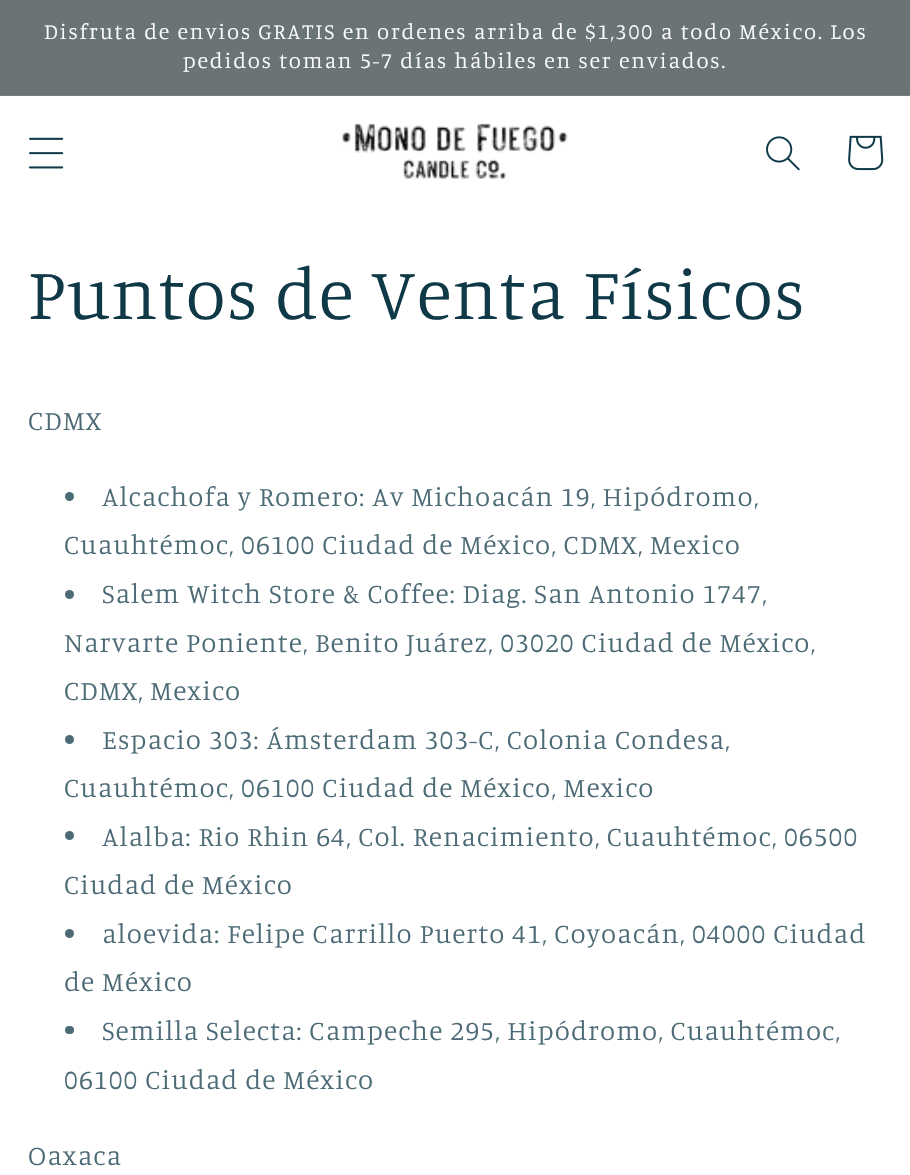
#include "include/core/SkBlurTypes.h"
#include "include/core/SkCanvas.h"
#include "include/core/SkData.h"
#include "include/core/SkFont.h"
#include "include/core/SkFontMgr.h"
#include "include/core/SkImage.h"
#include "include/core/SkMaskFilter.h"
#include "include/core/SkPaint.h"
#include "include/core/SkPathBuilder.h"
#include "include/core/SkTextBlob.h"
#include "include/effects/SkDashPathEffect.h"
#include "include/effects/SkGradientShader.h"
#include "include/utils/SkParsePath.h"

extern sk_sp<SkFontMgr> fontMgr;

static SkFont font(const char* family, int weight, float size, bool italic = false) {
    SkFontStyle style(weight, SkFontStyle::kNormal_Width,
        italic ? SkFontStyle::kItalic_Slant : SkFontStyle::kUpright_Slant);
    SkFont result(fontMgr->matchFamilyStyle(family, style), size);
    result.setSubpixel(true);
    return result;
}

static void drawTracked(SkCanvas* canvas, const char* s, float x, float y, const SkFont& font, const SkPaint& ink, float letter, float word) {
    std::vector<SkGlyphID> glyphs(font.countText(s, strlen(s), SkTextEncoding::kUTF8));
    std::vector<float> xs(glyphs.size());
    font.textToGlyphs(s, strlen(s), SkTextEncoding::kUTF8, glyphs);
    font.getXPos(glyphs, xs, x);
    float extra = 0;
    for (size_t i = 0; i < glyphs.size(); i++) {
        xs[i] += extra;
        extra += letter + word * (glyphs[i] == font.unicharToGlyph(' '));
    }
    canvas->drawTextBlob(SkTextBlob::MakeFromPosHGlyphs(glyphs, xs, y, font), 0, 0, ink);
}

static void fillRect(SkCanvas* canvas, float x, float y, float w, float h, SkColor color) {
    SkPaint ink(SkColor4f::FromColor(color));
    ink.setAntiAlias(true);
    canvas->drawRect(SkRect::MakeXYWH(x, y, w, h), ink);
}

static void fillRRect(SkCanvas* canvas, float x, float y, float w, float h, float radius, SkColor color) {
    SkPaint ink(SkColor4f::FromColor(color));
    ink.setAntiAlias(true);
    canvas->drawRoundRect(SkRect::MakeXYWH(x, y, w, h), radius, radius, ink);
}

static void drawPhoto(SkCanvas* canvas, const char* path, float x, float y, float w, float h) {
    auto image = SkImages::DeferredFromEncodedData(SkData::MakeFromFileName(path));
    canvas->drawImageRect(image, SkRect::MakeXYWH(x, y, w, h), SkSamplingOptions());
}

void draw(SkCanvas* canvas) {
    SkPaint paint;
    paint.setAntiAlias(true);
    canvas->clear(0xFFFFFFFF);
    fillRect(canvas, 0, 0, 910, 95, 0xFF6A7477);
    fillRect(canvas, 0, 95, 910, 1, 0xFF767F82);
    SkFont font1 = font("Manuale", 300, 22.05f);
    paint.setColor(0xFFFCFCFC);
    drawTracked(canvas, "Disfruta de envios GRATIS en ordenes arriba de $1,300 a todo México. Los", 44, 39, font1, paint, 1.85f, 0);
    drawTracked(canvas, "pedidos toman 5-7 días hábiles en ser enviados.", 183, 68, font1, paint, 1.85f, 0);
    drawPhoto(canvas, "assets/img1.png", 29, 137, 35, 32);
    drawPhoto(canvas, "assets/img2.png", 341, 123, 227, 56);
    drawPhoto(canvas, "assets/img3.png", 766, 136, 34, 35);
    drawPhoto(canvas, "assets/img4.png", 848, 135, 36, 36);
    SkFont font2 = font("Manuale", 300, 73.5f);
    paint.setColor(0xFF103948);
    drawTracked(canvas, "Puntos de Venta Físicos", 28, 319, font2, paint, 1.1f, 0);
    SkFont font3 = font("Manuale", 300, 27.55f);
    paint.setColor(0xFF4C6B76);
    drawTracked(canvas, "CDMX", 28, 430, font3, paint, 1.1f, 0);
    canvas->drawCircle(69.5f, 496.5f, 4.5f, paint);
    drawTracked(canvas, "Alcachofa y Romero: Av Michoacán 19, Hipódromo,", 102, 506, font3, paint, 1.1f, 0);
    drawTracked(canvas, "Cuauhtémoc, 06100 Ciudad de México, CDMX, Mexico", 64, 554, font3, paint, 1.1f, 0);
    canvas->drawCircle(69.5f, 594.5f, 4.5f, paint);
    drawTracked(canvas, "Salem Witch Store & Coffee: Diag. San Antonio 1747,", 102, 603, font3, paint, 1.1f, 0);
    drawTracked(canvas, "Narvarte Poniente, Benito Juárez, 03020 Ciudad de México,", 64, 652, font3, paint, 1.1f, 0);
    drawTracked(canvas, "CDMX, Mexico", 64, 700, font3, paint, 1.1f, 0);
    canvas->drawCircle(69.5f, 739.5f, 4.5f, paint);
    drawTracked(canvas, "Espacio 303: Ámsterdam 303-C, Colonia Condesa,", 102, 749, font3, paint, 1.1f, 0);
    drawTracked(canvas, "Cuauhtémoc, 06100 Ciudad de México, Mexico", 64, 797, font3, paint, 1.1f, 0);
    canvas->drawCircle(69.5f, 835.5f, 4.5f, paint);
    drawTracked(canvas, "Alalba: Rio Rhin 64, Col. Renacimiento, Cuauhtémoc, 06500", 102, 846, font3, paint, 1.1f, 0);
    drawTracked(canvas, "Ciudad de México", 64, 894, font3, paint, 1.1f, 0);
    canvas->drawCircle(69.5f, 933.5f, 4.5f, paint);
    drawTracked(canvas, "aloevida: Felipe Carrillo Puerto 41, Coyoacán, 04000 Ciudad", 102, 943, font3, paint, 1.1f, 0);
    drawTracked(canvas, "de México", 64, 991, font3, paint, 1.1f, 0);
    fillRRect(canvas, 65, 1026, 9, 8, 4, 0xFF4C6B76);
    drawTracked(canvas, "Semilla Selecta: Campeche 295, Hipódromo, Cuauhtémoc,", 102, 1040, font3, paint, 1.1f, 0);
    drawTracked(canvas, "06100 Ciudad de México", 64, 1089, font3, paint, 1.1f, 0);
    drawTracked(canvas, "Oaxaca", 28, 1165, font3, paint, 1.1f, 0);
}
